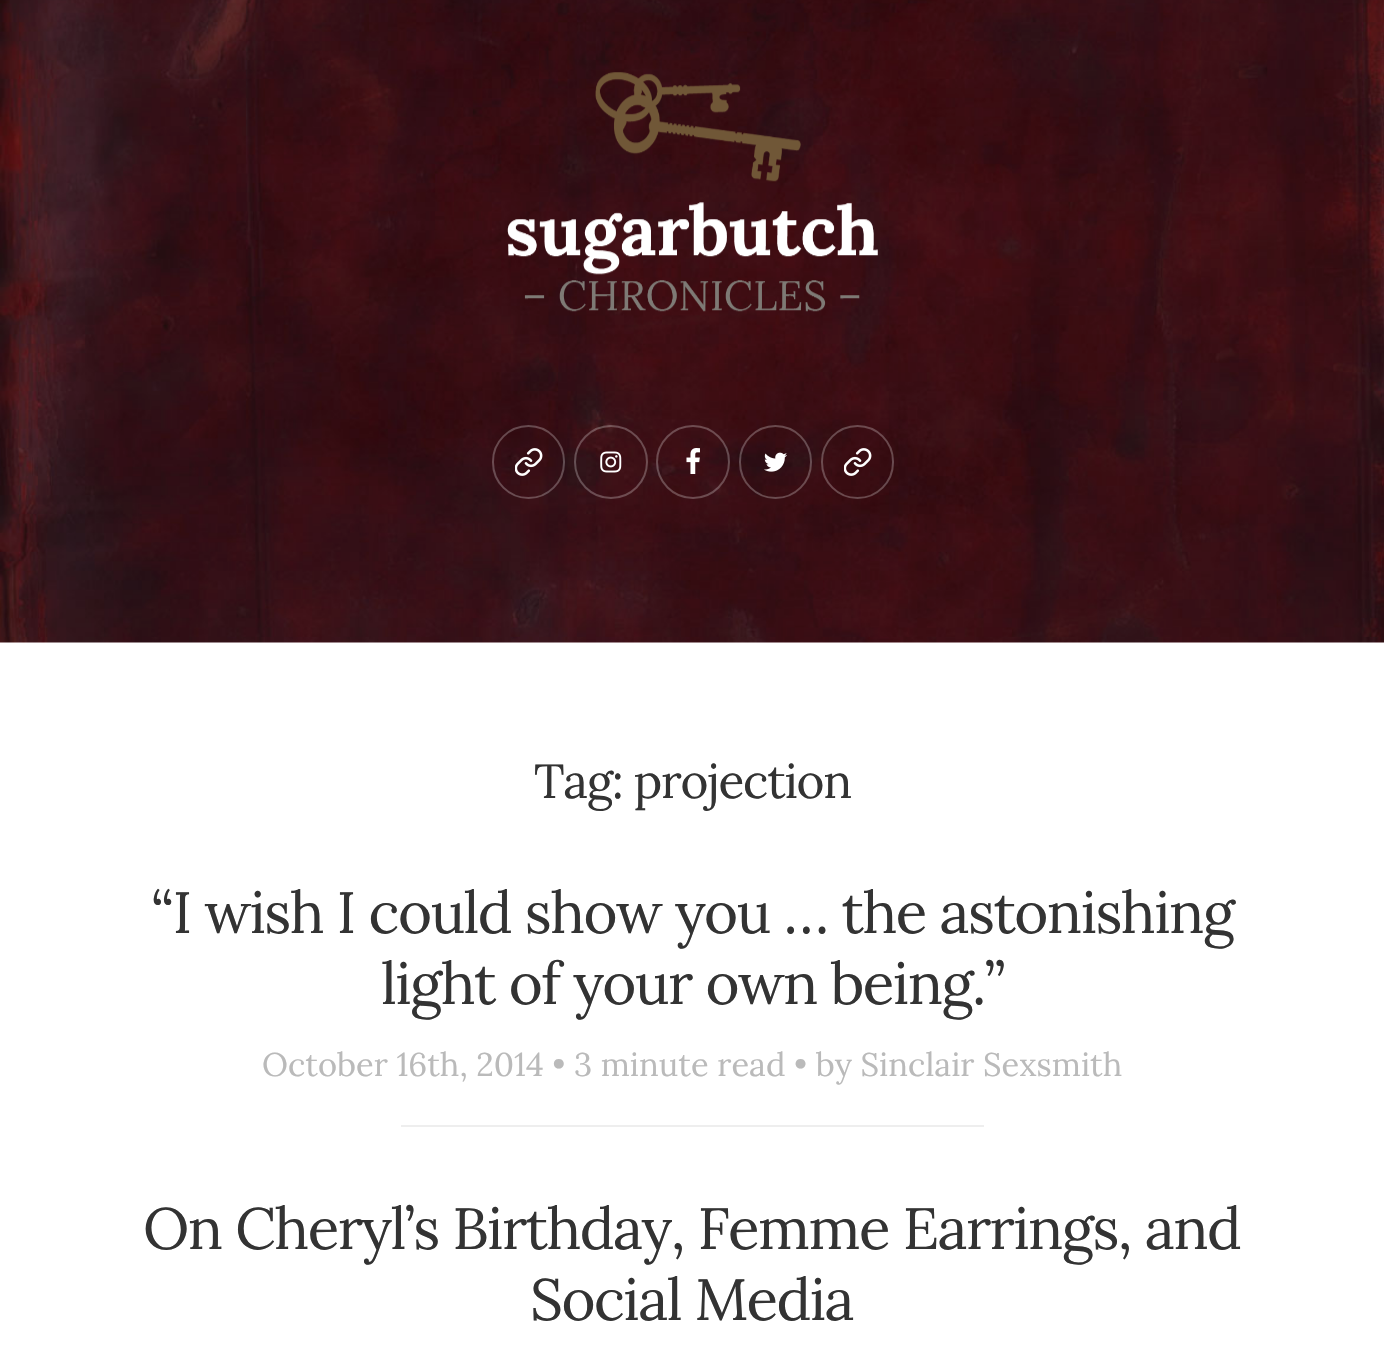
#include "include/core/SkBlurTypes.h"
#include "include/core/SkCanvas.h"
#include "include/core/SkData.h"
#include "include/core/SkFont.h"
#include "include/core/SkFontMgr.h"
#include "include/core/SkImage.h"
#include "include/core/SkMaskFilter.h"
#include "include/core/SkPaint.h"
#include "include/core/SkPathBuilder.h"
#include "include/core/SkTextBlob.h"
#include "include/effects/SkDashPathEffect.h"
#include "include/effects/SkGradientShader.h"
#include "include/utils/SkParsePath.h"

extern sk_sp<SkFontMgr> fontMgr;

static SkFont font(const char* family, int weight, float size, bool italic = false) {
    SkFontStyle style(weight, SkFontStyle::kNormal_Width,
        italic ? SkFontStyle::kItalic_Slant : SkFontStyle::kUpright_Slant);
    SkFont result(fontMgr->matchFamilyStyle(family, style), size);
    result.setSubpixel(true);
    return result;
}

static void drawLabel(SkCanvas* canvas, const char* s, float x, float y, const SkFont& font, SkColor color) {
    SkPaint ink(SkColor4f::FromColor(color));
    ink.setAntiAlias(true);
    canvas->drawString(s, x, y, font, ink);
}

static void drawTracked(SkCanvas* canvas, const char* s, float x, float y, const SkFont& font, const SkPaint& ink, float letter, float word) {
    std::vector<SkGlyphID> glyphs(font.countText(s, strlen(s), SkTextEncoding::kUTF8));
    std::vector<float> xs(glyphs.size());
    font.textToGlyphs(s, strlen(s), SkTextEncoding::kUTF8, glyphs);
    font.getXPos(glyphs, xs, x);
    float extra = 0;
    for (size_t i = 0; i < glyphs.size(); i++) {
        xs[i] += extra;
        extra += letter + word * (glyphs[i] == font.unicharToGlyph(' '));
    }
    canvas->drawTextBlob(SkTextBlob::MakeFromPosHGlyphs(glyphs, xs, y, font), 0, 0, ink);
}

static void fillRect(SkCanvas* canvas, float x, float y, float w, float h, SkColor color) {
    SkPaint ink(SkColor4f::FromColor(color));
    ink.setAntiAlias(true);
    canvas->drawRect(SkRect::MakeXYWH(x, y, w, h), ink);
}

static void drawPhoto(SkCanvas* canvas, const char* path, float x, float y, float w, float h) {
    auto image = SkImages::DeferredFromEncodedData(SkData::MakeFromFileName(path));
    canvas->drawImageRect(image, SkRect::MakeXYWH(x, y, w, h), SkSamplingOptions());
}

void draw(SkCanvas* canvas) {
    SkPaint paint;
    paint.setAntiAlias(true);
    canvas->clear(0xFFFFFFFF);
    drawPhoto(canvas, "assets/img1.png", 0, 0, 1384, 643);
    drawPhoto(canvas, "assets/img2.png", 507, 72, 371, 240);
    paint.setStroke(true);
    paint.setStrokeWidth(2);
    paint.setColor(0x40FFFFFF);
    canvas->drawRoundRect(SkRect::MakeXYWH(493, 426, 71, 72), 35.5f, 35.5f, paint);
    drawPhoto(canvas, "assets/img3.png", 515, 448, 28, 28);
    canvas->drawCircle(611, 462, 36, paint);
    drawPhoto(canvas, "assets/img4.png", 600, 451, 22, 22);
    canvas->drawCircle(693, 462, 36, paint);
    drawPhoto(canvas, "assets/img5.png", 686, 448, 14, 26);
    canvas->drawRoundRect(SkRect::MakeXYWH(740, 426, 71, 72), 35.5f, 35.5f, paint);
    drawPhoto(canvas, "assets/img6.png", 764, 452, 23, 20);
    canvas->drawRoundRect(SkRect::MakeXYWH(822, 426, 71, 72), 35.5f, 35.5f, paint);
    drawPhoto(canvas, "assets/img7.png", 844, 448, 28, 28);
    SkFont font1 = font("Lora", 400, 47.75f);
    paint.setStroke(false);
    paint.setColor(0xFF333333);
    drawTracked(canvas, "Tag: projection", 534, 798, font1, paint, -1.25f, 0);
    SkFont font2 = font("Lora", 400, 58.2f);
    drawTracked(canvas, "“I wish I could show you … the astonishing", 151, 933, font2, paint, -1.55f, 0);
    drawTracked(canvas, "light of your own being.”", 381, 1004, font2, paint, -1.55f, 0);
    SkFont font3 = font("Lora", 400, 32.65f);
    drawLabel(canvas, "October 16th, 2014 • 3 minute read • by Sinclair Sexsmith", 262, 1076, font3, 0xFFBABABA);
    fillRect(canvas, 401, 1125, 583, 2, 0xFFEEEEEE);
    drawTracked(canvas, "On Cheryl’s Birthday, Femme Earrings, and", 143, 1249, font2, paint, -1.55f, 0);
    drawTracked(canvas, "Social Media", 530, 1320, font2, paint, -1.55f, 0);
}
